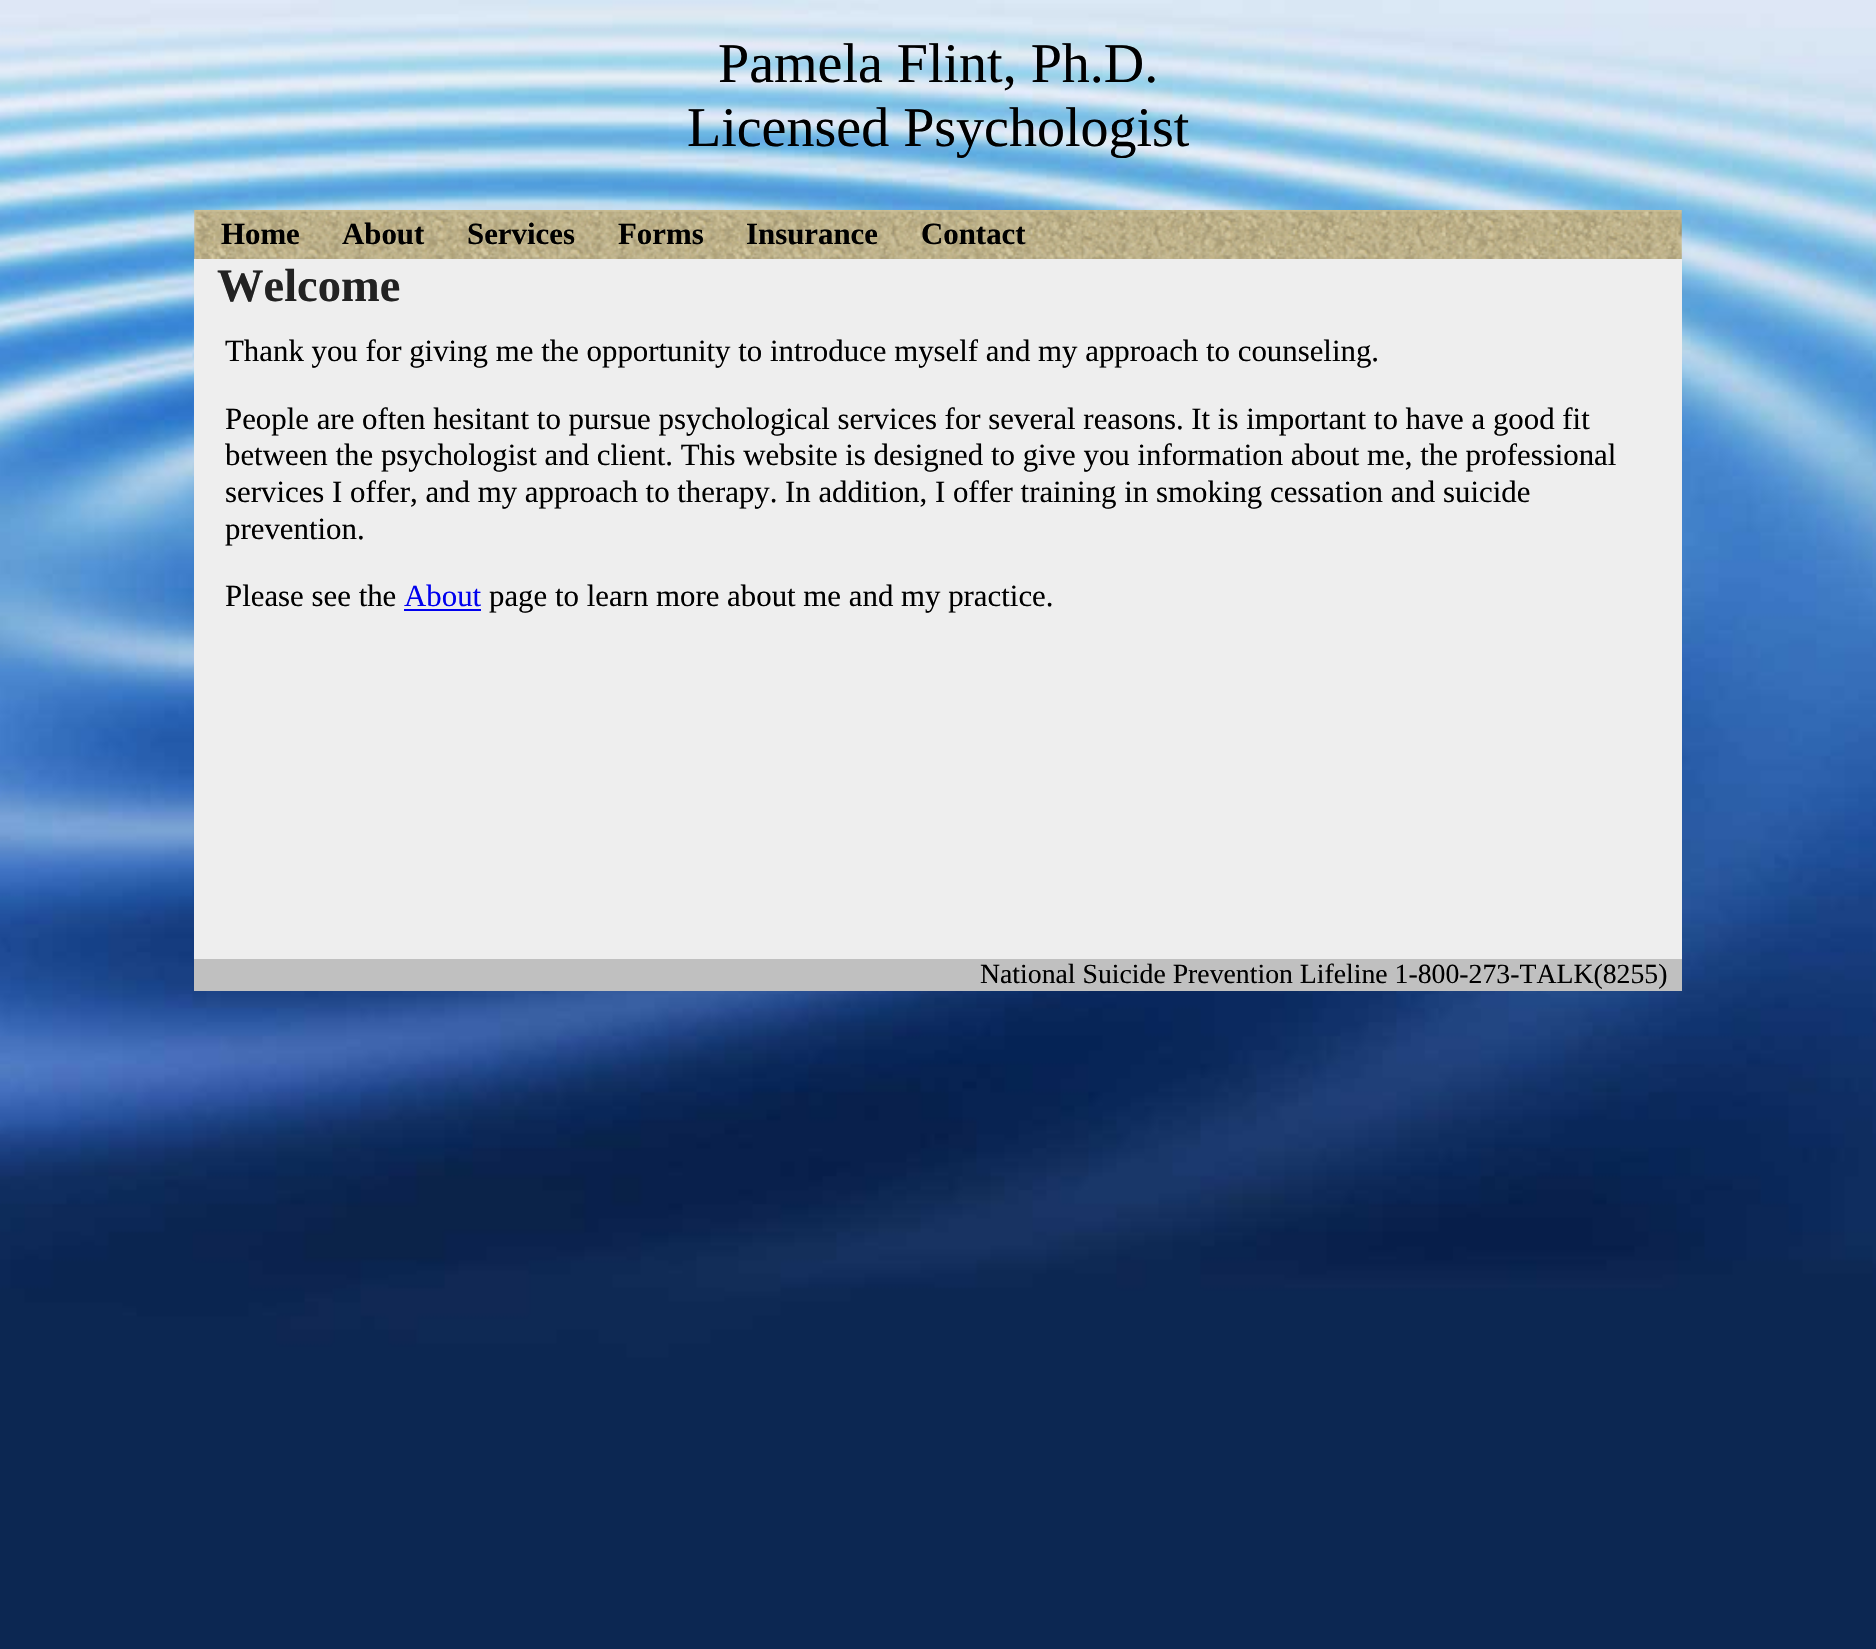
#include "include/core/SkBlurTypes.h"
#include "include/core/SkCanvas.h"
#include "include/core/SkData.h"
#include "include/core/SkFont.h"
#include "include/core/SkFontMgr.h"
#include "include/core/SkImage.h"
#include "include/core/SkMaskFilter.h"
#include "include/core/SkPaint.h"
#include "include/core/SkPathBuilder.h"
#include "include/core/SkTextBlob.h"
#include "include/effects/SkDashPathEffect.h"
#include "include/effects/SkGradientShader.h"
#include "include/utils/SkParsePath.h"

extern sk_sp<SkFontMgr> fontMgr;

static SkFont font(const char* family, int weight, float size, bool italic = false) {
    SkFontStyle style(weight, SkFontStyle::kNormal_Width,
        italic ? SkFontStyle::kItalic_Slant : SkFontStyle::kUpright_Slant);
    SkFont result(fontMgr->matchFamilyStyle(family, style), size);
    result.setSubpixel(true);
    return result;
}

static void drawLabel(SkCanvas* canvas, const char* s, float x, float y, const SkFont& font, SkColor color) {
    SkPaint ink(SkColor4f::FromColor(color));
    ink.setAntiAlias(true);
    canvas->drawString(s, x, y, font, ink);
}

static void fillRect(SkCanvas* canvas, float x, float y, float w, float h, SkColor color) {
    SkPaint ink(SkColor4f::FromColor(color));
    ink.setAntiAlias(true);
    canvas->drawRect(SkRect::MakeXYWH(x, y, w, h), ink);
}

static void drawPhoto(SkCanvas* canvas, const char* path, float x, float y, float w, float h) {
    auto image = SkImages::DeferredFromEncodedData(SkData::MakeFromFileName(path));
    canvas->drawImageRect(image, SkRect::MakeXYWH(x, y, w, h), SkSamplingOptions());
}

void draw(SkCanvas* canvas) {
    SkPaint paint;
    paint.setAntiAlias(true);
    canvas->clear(0xFFFFFFFF);
    drawPhoto(canvas, "assets/img1.png", 0, 0, 1876, 1649);
    SkFont font1 = font("Liberation Serif", 400, 56);
    drawLabel(canvas, "Pamela Flint, Ph.D.", 718, 82, font1, 0xFF000000);
    drawLabel(canvas, "Licensed Psychologist", 687, 146, font1, 0xFF000000);
    drawPhoto(canvas, "assets/img2.png", 194, 210, 1488, 49);
    SkFont font2 = font("Liberation Serif", 700, 30.85f);
    drawLabel(canvas, "Home", 221, 244, font2, 0xFF000000);
    drawLabel(canvas, "About", 342, 244, font2, 0xFF000000);
    drawLabel(canvas, "Services", 467, 244, font2, 0xFF000000);
    drawLabel(canvas, "Forms", 618, 244, font2, 0xFF000000);
    drawLabel(canvas, "Insurance", 746, 244, font2, 0xFF000000);
    drawLabel(canvas, "Contact", 921, 244, font2, 0xFF000000);
    fillRect(canvas, 194, 259, 1488, 700, 0xFFEEEEEE);
    SkFont font3 = font("Liberation Serif", 700, 46.5f);
    drawLabel(canvas, "Welcome", 217, 301, font3, 0xFF222222);
    SkFont font4 = font("Liberation Serif", 400, 30.85f);
    drawLabel(canvas, "Thank you for giving me the opportunity to introduce myself and my approach to counseling.", 225, 361, font4, 0xFF000000);
    drawLabel(canvas, "People are often hesitant to pursue psychological services for several reasons. It is important to have a good fit", 225, 429, font4, 0xFF000000);
    drawLabel(canvas, "between the psychologist and client. This website is designed to give you information about me, the professional", 225, 465, font4, 0xFF000000);
    drawLabel(canvas, "services I offer, and my approach to therapy.", 225, 502, font4, 0xFF000000);
    drawLabel(canvas, "In addition, I offer training in smoking cessation and suicide", 785, 502, font4, 0xFF000000);
    drawLabel(canvas, "prevention.", 225, 539, font4, 0xFF000000);
    drawLabel(canvas, "Please see the", 225, 606, font4, 0xFF000000);
    drawLabel(canvas, "About", 404, 606, font4, 0xFF0000EE);
    fillRect(canvas, 404, 609, 77, 2, 0xFF0000EE);
    drawLabel(canvas, "page to learn more about me and my practice.", 489, 606, font4, 0xFF000000);
    fillRect(canvas, 194, 959, 1488, 32, 0xFFC0C0C0);
    SkFont font5 = font("Liberation Serif", 400, 27.75f);
    drawLabel(canvas, "National Suicide Prevention Lifeline 1-800-273-TALK(8255)", 980, 983, font5, 0xFF000000);
}
